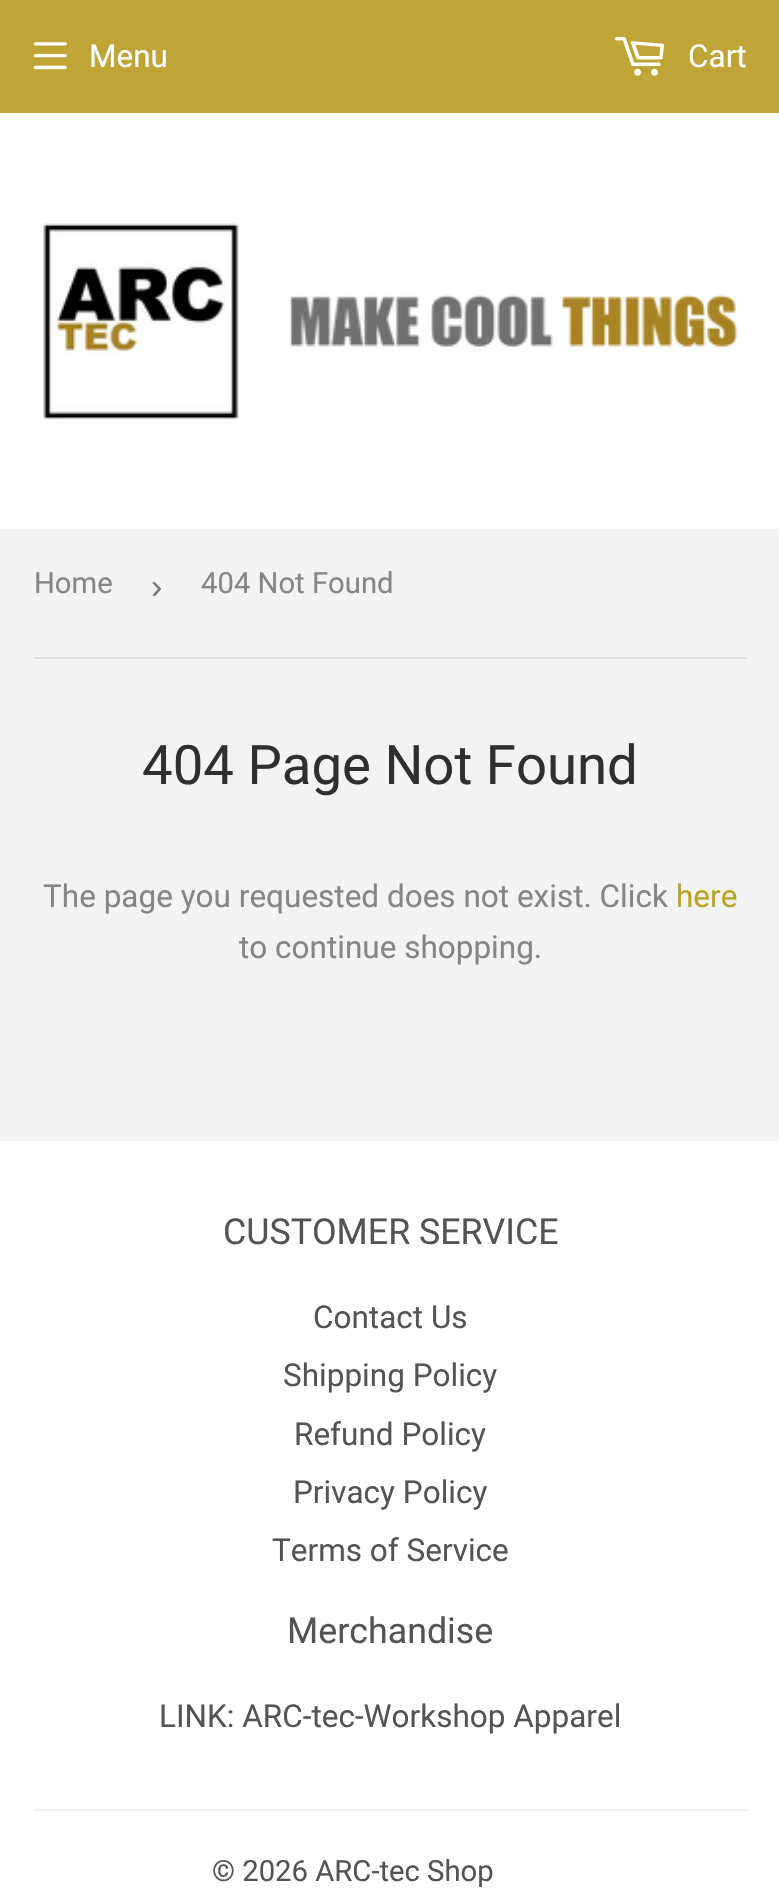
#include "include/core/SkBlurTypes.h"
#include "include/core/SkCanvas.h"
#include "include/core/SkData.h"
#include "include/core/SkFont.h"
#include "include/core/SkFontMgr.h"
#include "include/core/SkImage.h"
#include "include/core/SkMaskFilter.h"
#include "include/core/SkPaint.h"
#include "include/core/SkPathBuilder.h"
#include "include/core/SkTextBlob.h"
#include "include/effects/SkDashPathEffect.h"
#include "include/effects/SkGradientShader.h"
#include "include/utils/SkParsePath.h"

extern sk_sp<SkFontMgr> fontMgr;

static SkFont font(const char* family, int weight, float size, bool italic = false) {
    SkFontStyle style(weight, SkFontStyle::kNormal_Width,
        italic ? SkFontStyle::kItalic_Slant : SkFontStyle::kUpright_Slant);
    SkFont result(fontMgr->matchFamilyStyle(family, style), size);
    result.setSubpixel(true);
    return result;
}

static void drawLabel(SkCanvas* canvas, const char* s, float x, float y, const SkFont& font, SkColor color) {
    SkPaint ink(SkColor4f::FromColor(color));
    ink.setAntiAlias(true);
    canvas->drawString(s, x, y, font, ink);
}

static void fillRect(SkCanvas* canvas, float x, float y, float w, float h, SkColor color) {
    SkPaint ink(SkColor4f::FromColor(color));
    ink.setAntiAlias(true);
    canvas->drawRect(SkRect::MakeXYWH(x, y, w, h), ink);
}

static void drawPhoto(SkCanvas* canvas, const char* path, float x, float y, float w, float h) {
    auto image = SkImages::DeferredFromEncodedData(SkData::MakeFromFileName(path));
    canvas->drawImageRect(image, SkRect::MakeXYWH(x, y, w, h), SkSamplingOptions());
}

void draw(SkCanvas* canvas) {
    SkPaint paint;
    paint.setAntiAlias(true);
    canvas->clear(0xFFF3F3F3);
    fillRect(canvas, 0, 0, 779, 113, 0xFFBFA536);
    drawPhoto(canvas, "assets/img1.png", 33, 42, 34, 28);
    SkFont font1 = font("Roboto", 400, 31.5f);
    drawLabel(canvas, "Menu", 89, 67, font1, 0xFFFFFFFF);
    drawPhoto(canvas, "assets/img2.png", 614, 37, 50, 39);
    drawLabel(canvas, "Cart", 688, 67, font1, 0xFFFFFFFF);
    fillRect(canvas, 0, 113, 779, 416, 0xFFFFFFFF);
    drawPhoto(canvas, "assets/img3.png", 43, 223, 695, 197);
    fillRect(canvas, 34, 657, 713, 2, 0xFFDEDEDE);
    SkFont font2 = font("Roboto", 400, 29.25f);
    drawLabel(canvas, "Home", 34, 593, font2, 0xFF858585);
    SkFont font3 = font("Liberation Sans", 400, 34);
    drawLabel(canvas, "›", 151, 598, font3, 0xFF767676);
    drawLabel(canvas, "404 Not Found", 201, 593, font2, 0xFF858585);
    SkFont font4 = font("Roboto", 400, 54.5f);
    drawLabel(canvas, "404 Page Not Found", 142, 784, font4, 0xFF2F2F2F);
    drawLabel(canvas, "The page you requested does not exist. Click", 43, 907, font1, 0xFF858585);
    drawLabel(canvas, "here", 676, 907, font1, 0xFFBAA426);
    drawLabel(canvas, "to continue shopping.", 239, 958, font1, 0xFF858585);
    fillRect(canvas, 0, 1141, 779, 756, 0xFFFFFFFF);
    SkFont font5 = font("Roboto", 400, 35.75f);
    drawLabel(canvas, "CUSTOMER SERVICE", 223, 1244, font5, 0xFF545454);
    drawLabel(canvas, "Contact Us", 313, 1328, font1, 0xFF545454);
    drawLabel(canvas, "Shipping Policy", 283, 1386, font1, 0xFF545454);
    drawLabel(canvas, "Refund Policy", 294, 1445, font1, 0xFF545454);
    drawLabel(canvas, "Privacy Policy", 293, 1503, font1, 0xFF545454);
    drawLabel(canvas, "Terms of Service", 272, 1561, font1, 0xFF545454);
    drawLabel(canvas, "Merchandise", 287, 1643, font5, 0xFF545454);
    drawLabel(canvas, "LINK: ARC-tec-Workshop Apparel", 159, 1727, font1, 0xFF545454);
    fillRect(canvas, 34, 1809, 713, 2, 0xFFF2F2F2);
    drawLabel(canvas, "© 2026 ARC-tec Shop", 212, 1881, font2, 0xFF545454);
}
